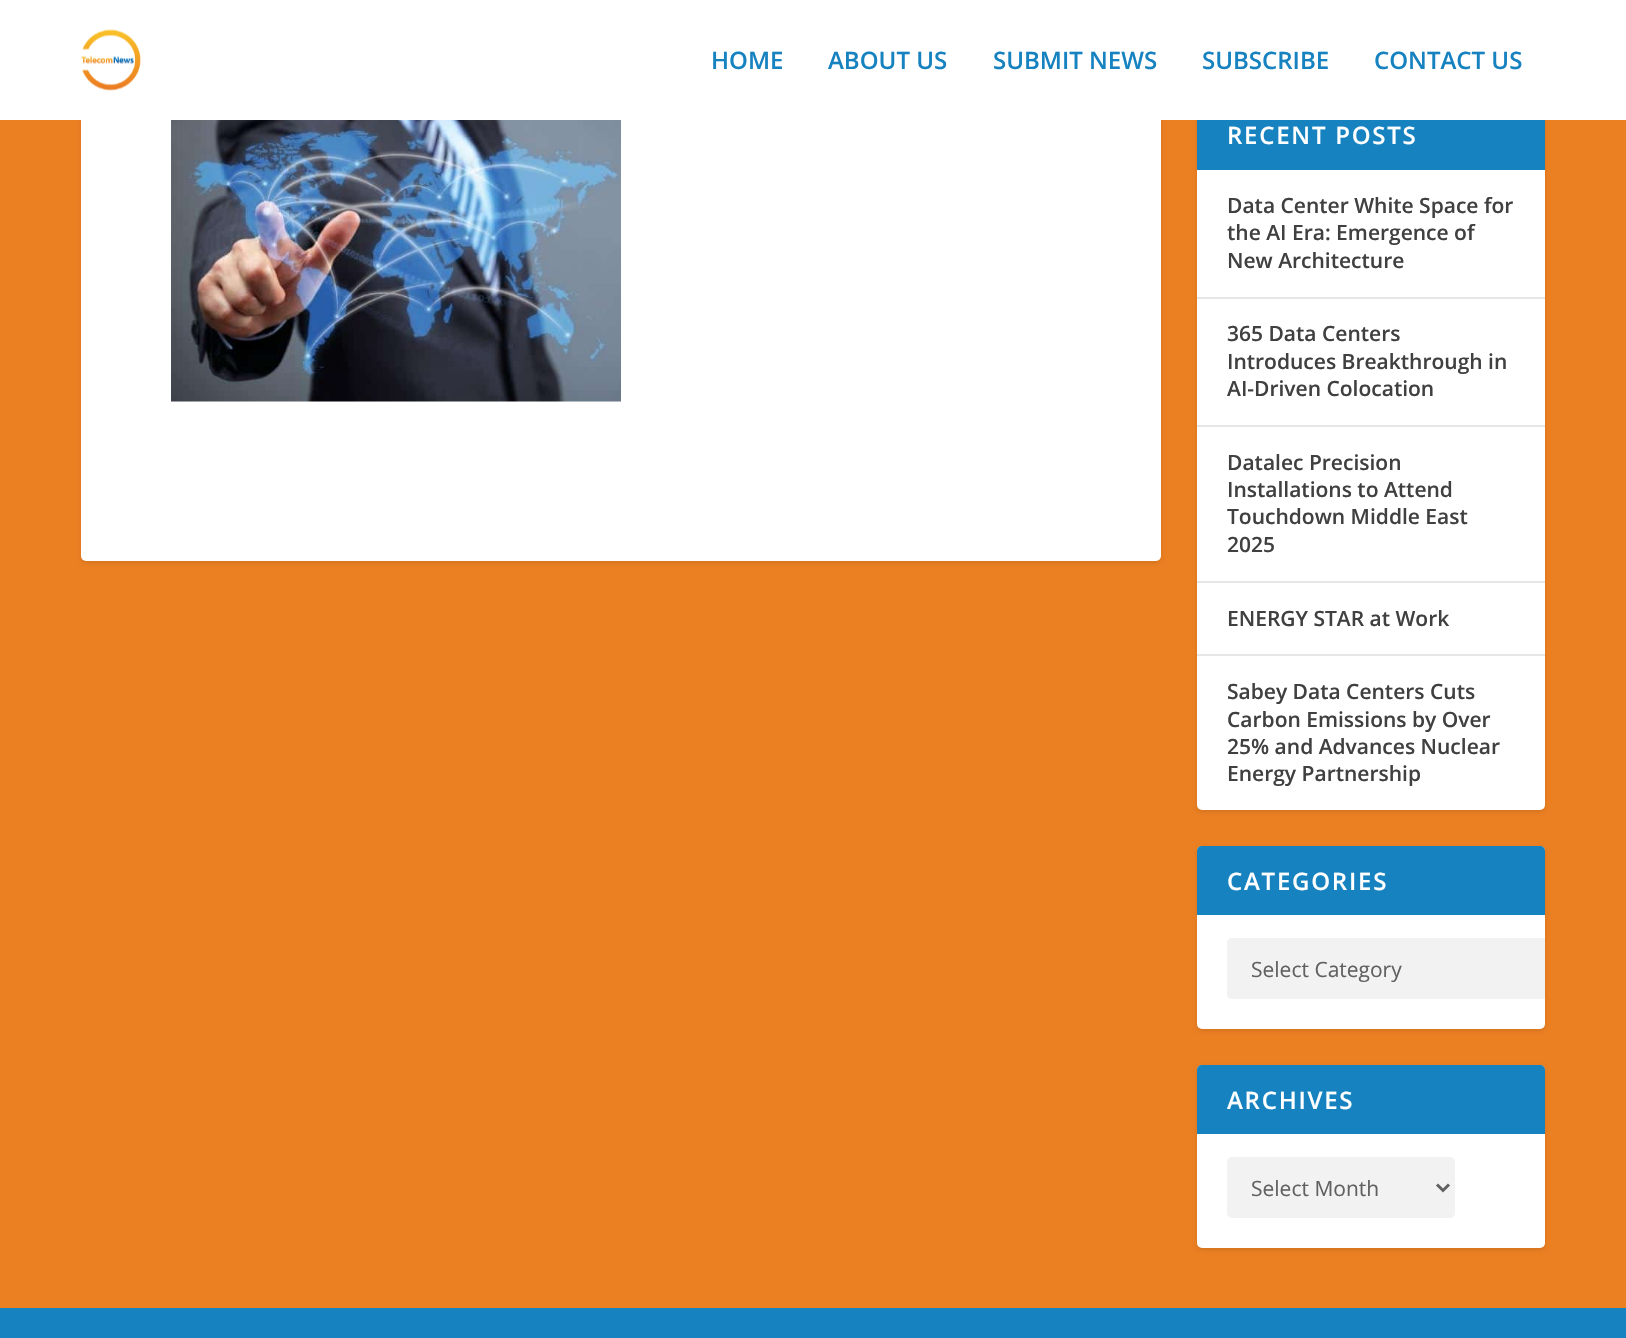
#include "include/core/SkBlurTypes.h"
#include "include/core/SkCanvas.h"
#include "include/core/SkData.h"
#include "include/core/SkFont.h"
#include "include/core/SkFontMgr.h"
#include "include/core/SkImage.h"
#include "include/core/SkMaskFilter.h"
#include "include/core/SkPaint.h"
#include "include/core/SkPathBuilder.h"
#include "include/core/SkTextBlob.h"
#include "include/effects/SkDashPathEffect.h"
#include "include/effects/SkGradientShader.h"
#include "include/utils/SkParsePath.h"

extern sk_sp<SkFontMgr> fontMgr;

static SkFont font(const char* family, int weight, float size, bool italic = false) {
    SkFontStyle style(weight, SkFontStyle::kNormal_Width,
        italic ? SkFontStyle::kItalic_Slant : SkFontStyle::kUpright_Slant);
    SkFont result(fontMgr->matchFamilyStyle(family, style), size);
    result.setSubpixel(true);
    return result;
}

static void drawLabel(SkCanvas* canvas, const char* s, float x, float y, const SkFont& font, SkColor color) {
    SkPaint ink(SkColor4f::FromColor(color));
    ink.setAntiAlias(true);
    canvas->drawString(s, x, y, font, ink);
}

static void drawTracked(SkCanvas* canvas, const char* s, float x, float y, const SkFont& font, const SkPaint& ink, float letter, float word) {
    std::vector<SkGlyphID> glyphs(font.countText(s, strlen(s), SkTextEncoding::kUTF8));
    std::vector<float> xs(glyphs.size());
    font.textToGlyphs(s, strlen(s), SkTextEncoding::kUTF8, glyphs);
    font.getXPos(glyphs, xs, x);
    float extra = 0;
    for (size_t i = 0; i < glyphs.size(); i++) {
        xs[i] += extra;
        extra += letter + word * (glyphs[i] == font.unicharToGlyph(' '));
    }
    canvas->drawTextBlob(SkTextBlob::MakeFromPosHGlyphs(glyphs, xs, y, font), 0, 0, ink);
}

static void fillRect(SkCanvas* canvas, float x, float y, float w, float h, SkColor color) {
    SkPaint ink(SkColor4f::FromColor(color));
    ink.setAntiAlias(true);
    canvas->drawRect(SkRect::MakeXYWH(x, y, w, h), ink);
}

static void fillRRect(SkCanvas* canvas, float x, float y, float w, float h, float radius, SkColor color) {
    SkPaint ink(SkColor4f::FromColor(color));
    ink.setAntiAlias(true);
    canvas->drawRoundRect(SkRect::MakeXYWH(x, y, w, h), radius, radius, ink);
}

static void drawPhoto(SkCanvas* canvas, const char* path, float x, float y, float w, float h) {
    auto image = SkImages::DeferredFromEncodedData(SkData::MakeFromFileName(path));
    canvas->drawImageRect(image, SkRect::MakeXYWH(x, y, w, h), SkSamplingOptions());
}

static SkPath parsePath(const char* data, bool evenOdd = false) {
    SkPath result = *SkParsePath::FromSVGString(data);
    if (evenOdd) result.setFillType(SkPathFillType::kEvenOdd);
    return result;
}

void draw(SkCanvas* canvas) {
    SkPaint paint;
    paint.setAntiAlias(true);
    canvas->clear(0xFFEB8022);
    paint.setColor(0x1A000000);
    paint.setMaskFilter(SkMaskFilter::MakeBlur(kNormal_SkBlurStyle, 2));
    canvas->drawRoundRect(SkRect::MakeXYWH(81, -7, 1080, 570), 5, 5, paint);
    paint.setMaskFilter(nullptr);
    fillRRect(canvas, 81, -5, 1080, 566, 5, 0xFFFFFFFF);
    paint.setMaskFilter(SkMaskFilter::MakeBlur(kNormal_SkBlurStyle, 2));
    canvas->drawRoundRect(SkRect::MakeXYWH(1197, 102, 348, 710), 5, 5, paint);
    paint.setMaskFilter(nullptr);
    fillRRect(canvas, 1197, 101, 348, 709, 5, 0xFFFFFFFF);
    fillRect(canvas, 0, 0, 1626, 120, 0xFFFFFFFF);
    drawPhoto(canvas, "assets/img1.png", 81, 29, 60, 62);
    SkFont font1 = font("Open Sans", 600, 24);
    drawLabel(canvas, "HOME", 711, 69, font1, 0xFF1682C0);
    drawLabel(canvas, "ABOUT US", 828, 69, font1, 0xFF1682C0);
    drawLabel(canvas, "SUBMIT NEWS", 993, 69, font1, 0xFF1682C0);
    drawLabel(canvas, "SUBSCRIBE", 1202, 69, font1, 0xFF1682C0);
    drawLabel(canvas, "CONTACT US", 1374, 69, font1, 0xFF1682C0);
    drawPhoto(canvas, "assets/img2.png", 171, 120, 450, 282);
    fillRect(canvas, 1197, 120, 348, 50, 0xFF1682C0);
    paint.setColor(0xFFFFFFFF);
    drawTracked(canvas, "RECENT POSTS", 1227, 144, font1, paint, 1.75f, 0);
    fillRect(canvas, 1197, 297, 348, 2, 0xFFE6E6E6);
    SkFont font2 = font("Open Sans", 600, 21);
    drawLabel(canvas, "Data Center White Space for", 1227, 213, font2, 0xFF404040);
    drawLabel(canvas, "the AI Era: Emergence of", 1227, 240, font2, 0xFF404040);
    drawLabel(canvas, "New Architecture", 1227, 268, font2, 0xFF404040);
    fillRect(canvas, 1197, 425, 348, 2, 0xFFE6E6E6);
    drawLabel(canvas, "365 Data Centers", 1227, 341, font2, 0xFF404040);
    drawLabel(canvas, "Introduces Breakthrough in", 1227, 369, font2, 0xFF404040);
    drawLabel(canvas, "AI-Driven Colocation", 1227, 396, font2, 0xFF404040);
    fillRect(canvas, 1197, 581, 348, 2, 0xFFE6E6E6);
    drawLabel(canvas, "Datalec Precision", 1227, 470, font2, 0xFF404040);
    drawLabel(canvas, "Installations to Attend", 1227, 497, font2, 0xFF404040);
    drawLabel(canvas, "Touchdown Middle East", 1227, 524, font2, 0xFF404040);
    drawLabel(canvas, "2025", 1227, 552, font2, 0xFF404040);
    fillRect(canvas, 1197, 654, 348, 2, 0xFFE6E6E6);
    drawLabel(canvas, "ENERGY STAR at Work", 1227, 626, font2, 0xFF404040);
    drawLabel(canvas, "Sabey Data Centers Cuts", 1227, 699, font2, 0xFF404040);
    drawLabel(canvas, "Carbon Emissions by Over", 1227, 727, font2, 0xFF404040);
    drawLabel(canvas, "25% and Advances Nuclear", 1227, 754, font2, 0xFF404040);
    drawLabel(canvas, "Energy Partnership", 1227, 781, font2, 0xFF404040);
    paint.setColor(0x1A000000);
    paint.setMaskFilter(SkMaskFilter::MakeBlur(kNormal_SkBlurStyle, 2));
    canvas->drawRoundRect(SkRect::MakeXYWH(1197, 848, 348, 183), 5, 5, paint);
    paint.setMaskFilter(nullptr);
    fillRRect(canvas, 1197, 846, 348, 183, 5, 0xFFFFFFFF);
    paint.setColor(0xFF1682C0);
    canvas->drawPath(parsePath("M1202 846H1540C1543 846 1545 848 1545 851V915H1197V851C1197 848 1199 846 1202 846Z"), paint);
    paint.setColor(0xFFFFFFFF);
    drawTracked(canvas, "CATEGORIES", 1227, 890, font1, paint, 1.75f, 0);
    paint.setColor(0xFFF2F2F2);
    canvas->drawPath(parsePath("M1232 938H1545V999H1232C1229 999 1227 997 1227 994V943C1227 940 1229 938 1232 938Z"), paint);
    SkFont font3 = font("Open Sans", 400, 21);
    drawLabel(canvas, "Select Category", 1251, 977, font3, 0xFF616161);
    paint.setColor(0x1A000000);
    paint.setMaskFilter(SkMaskFilter::MakeBlur(kNormal_SkBlurStyle, 2));
    canvas->drawRoundRect(SkRect::MakeXYWH(1197, 1067, 348, 183), 5, 5, paint);
    paint.setMaskFilter(nullptr);
    fillRRect(canvas, 1197, 1065, 348, 183, 5, 0xFFFFFFFF);
    paint.setColor(0xFF1682C0);
    canvas->drawPath(parsePath("M1202 1065H1540C1543 1065 1545 1067 1545 1070V1134H1197V1070C1197 1067 1199 1065 1202 1065Z"), paint);
    paint.setColor(0xFFFFFFFF);
    drawTracked(canvas, "ARCHIVES", 1227, 1109, font1, paint, 1.75f, 0);
    fillRRect(canvas, 1227, 1157, 228, 61, 5, 0xFFF2F2F2);
    paint.setStroke(true);
    paint.setStrokeWidth(3);
    paint.setColor(0xFF616161);
    canvas->drawPath(parsePath("M1437 1184.5L1443 1190.5L1449 1184.5"), paint);
    drawLabel(canvas, "Select Month", 1251, 1196, font3, 0xFF616161);
    fillRect(canvas, 0, 1308, 1626, 30, 0xFF1682C0);
}
